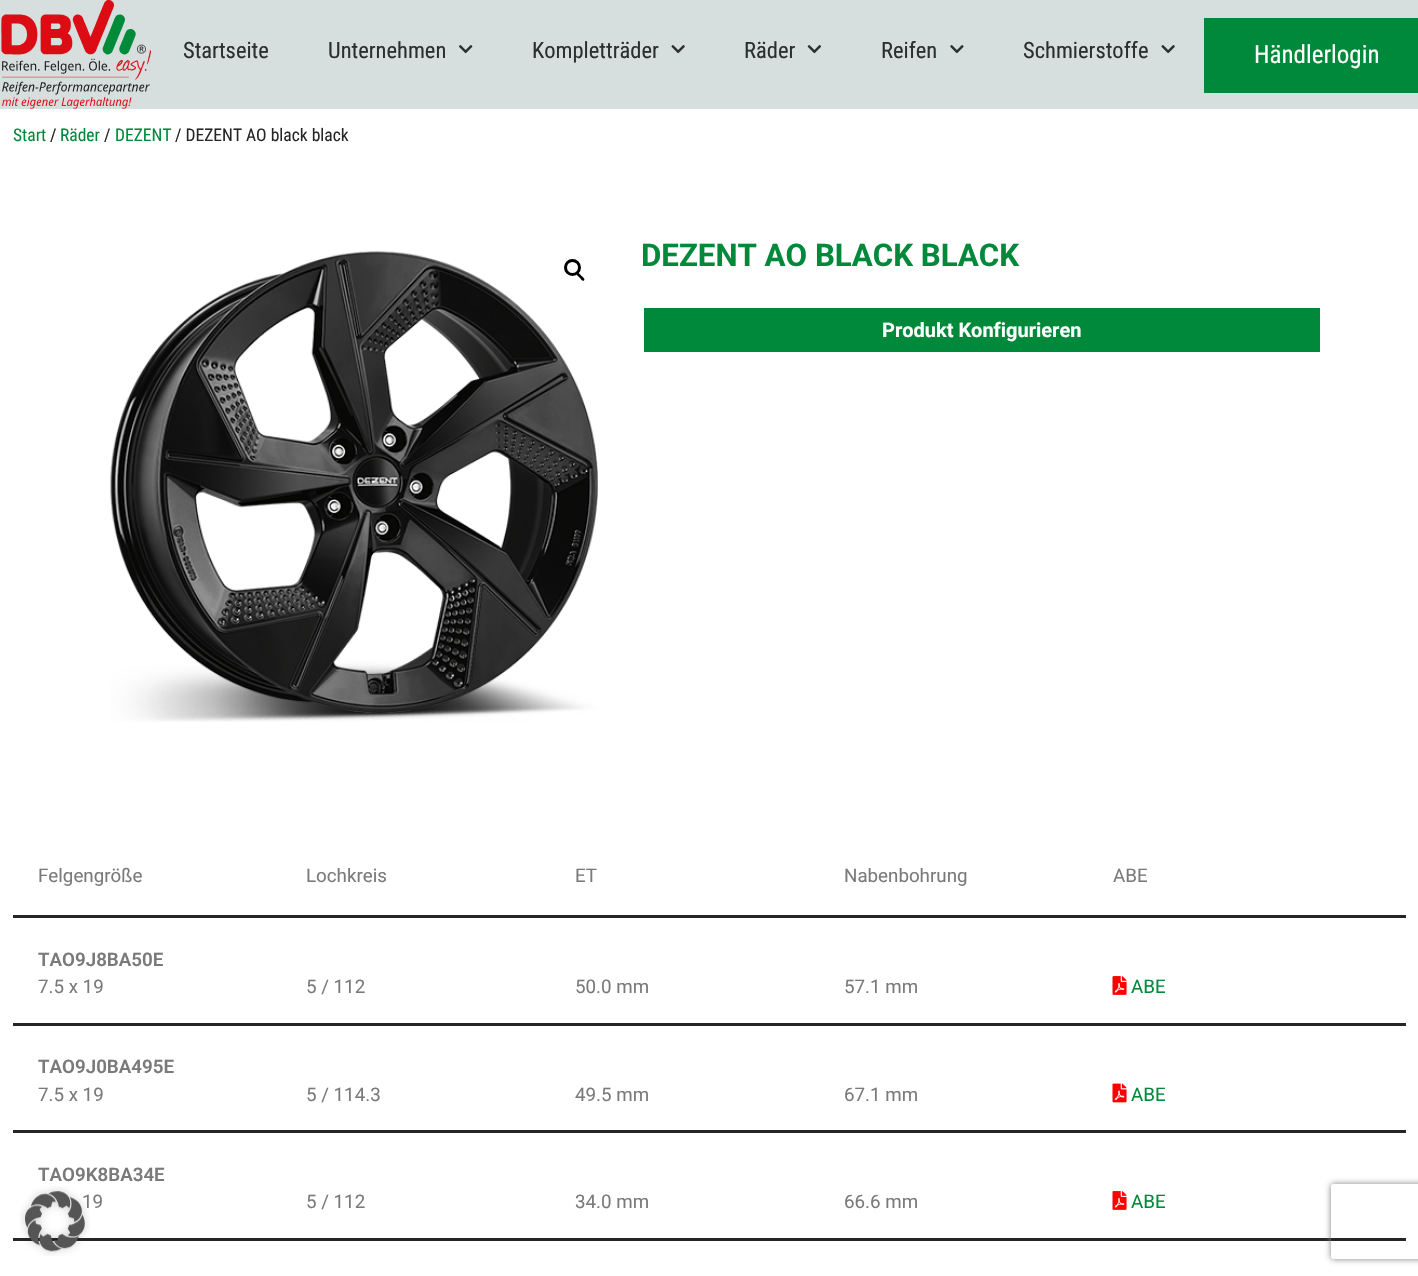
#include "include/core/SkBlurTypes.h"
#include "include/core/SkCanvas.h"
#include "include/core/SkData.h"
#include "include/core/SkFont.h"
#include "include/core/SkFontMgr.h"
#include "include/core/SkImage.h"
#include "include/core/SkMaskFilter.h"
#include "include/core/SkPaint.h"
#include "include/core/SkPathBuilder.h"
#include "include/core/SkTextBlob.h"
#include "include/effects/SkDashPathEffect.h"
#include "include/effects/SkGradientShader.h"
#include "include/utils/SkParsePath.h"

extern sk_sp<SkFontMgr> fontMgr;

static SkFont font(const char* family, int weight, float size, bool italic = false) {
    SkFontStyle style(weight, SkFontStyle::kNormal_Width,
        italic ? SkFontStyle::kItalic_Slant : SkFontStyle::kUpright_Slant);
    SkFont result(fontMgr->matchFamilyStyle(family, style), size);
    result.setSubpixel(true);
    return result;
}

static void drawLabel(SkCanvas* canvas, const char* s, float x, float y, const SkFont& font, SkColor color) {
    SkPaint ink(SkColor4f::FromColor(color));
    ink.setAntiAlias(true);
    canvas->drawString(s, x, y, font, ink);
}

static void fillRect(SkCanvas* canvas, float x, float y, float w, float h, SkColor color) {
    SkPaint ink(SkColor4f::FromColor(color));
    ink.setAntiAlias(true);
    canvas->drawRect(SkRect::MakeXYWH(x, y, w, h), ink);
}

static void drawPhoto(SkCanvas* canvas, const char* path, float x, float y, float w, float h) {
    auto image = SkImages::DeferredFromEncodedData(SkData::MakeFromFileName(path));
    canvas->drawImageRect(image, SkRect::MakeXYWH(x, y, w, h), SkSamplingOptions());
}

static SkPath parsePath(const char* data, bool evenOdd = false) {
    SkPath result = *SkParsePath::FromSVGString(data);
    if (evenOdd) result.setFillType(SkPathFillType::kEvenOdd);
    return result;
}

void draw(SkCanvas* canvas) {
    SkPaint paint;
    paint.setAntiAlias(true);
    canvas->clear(0xFFFFFFFF);
    fillRect(canvas, 0, 0, 1418, 109, 0xFFD6DEDE);
    drawPhoto(canvas, "assets/img1.png", 1, 0, 150, 109);
    SkFont font1 = font("Roboto Condensed", 400, 22.5f);
    drawLabel(canvas, "Startseite", 183, 58, font1, 0xFF2A302F);
    drawLabel(canvas, "Unternehmen", 328, 58, font1, 0xFF2A302F);
    drawPhoto(canvas, "assets/img2.png", 459, 45, 14, 9);
    drawLabel(canvas, "Kompletträder", 532, 58, font1, 0xFF2A302F);
    drawPhoto(canvas, "assets/img3.png", 671, 45, 14, 9);
    drawLabel(canvas, "Räder", 744, 58, font1, 0xFF2A302F);
    drawPhoto(canvas, "assets/img4.png", 807, 45, 15, 9);
    drawLabel(canvas, "Reifen", 881, 58, font1, 0xFF2A302F);
    drawPhoto(canvas, "assets/img5.png", 950, 45, 14, 9);
    drawLabel(canvas, "Schmierstoffe", 1023, 58, font1, 0xFF2A302F);
    drawPhoto(canvas, "assets/img3.png", 1161, 45, 14, 9);
    fillRect(canvas, 1204, 18, 214, 75, 0xFF00893B);
    SkFont font2 = font("Roboto Condensed", 400, 25);
    drawLabel(canvas, "Händlerlogin", 1254, 63, font2, 0xFFFFFFFF);
    SkFont font3 = font("Roboto Condensed", 400, 17.5f);
    drawLabel(canvas, "Start", 13, 141, font3, 0xFF00893B);
    drawLabel(canvas, "/", 50, 141, font3, 0xFF272626);
    drawLabel(canvas, "Räder", 60, 141, font3, 0xFF00893B);
    drawLabel(canvas, "/", 104, 141, font3, 0xFF272626);
    drawLabel(canvas, "DEZENT", 115, 141, font3, 0xFF00893B);
    drawLabel(canvas, "/ DEZENT AO black black", 175, 141, font3, 0xFF272626);
    drawPhoto(canvas, "assets/img6.png", 110, 251, 488, 471);
    paint.setStroke(true);
    paint.setStrokeWidth(3);
    paint.setColor(0xFF000000);
    canvas->drawCircle(572.5f, 267.5f, 7, paint);
    paint.setStroke(false);
    canvas->drawPath(parsePath("M577 273.5C578.5 272 580.5 275 581.5 276C582.5 276.5 585.5 279 584 280.5C582.5 282 580.5 278.5 579.5 277.5C579 277 575.5 274.5 577 273.5Z"), paint);
    SkFont font4 = font("Roboto", 700, 31.25f);
    drawLabel(canvas, "DEZENT AO BLACK BLACK", 641, 266, font4, 0xFF00893B);
    fillRect(canvas, 644, 308, 676, 44, 0xFF00893B);
    SkFont font5 = font("Roboto", 700, 20);
    drawLabel(canvas, "Produkt Konfigurieren", 882, 337, font5, 0xFFFFFFFF);
    fillRect(canvas, 13, 915, 1393, 3, 0xFF272626);
    SkFont font6 = font("Roboto", 400, 18.75f);
    drawLabel(canvas, "Felgengröße", 38, 882, font6, 0xFF7A7A7A);
    drawLabel(canvas, "Lochkreis", 306, 882, font6, 0xFF7A7A7A);
    drawLabel(canvas, "ET", 575, 882, font6, 0xFF7A7A7A);
    drawLabel(canvas, "Nabenbohrung", 844, 882, font6, 0xFF7A7A7A);
    drawLabel(canvas, "ABE", 1113, 882, font6, 0xFF7A7A7A);
    fillRect(canvas, 13, 1023, 1393, 3, 0xFF272626);
    SkFont font7 = font("Roboto", 600, 18.75f);
    drawLabel(canvas, "TAO9J8BA50E", 38, 966, font7, 0xFF7A7A7A);
    drawLabel(canvas, "7.5 x 19", 38, 993, font6, 0xFF7A7A7A);
    drawLabel(canvas, "5 / 112", 306, 993, font6, 0xFF7A7A7A);
    drawLabel(canvas, "50.0 mm", 575, 993, font6, 0xFF7A7A7A);
    drawLabel(canvas, "57.1 mm", 844, 993, font6, 0xFF7A7A7A);
    drawPhoto(canvas, "assets/img7.png", 1112, 976, 15, 19);
    drawLabel(canvas, "ABE", 1131, 993, font6, 0xFF00893B);
    fillRect(canvas, 13, 1130, 1393, 3, 0xFF272626);
    drawLabel(canvas, "TAO9J0BA495E", 38, 1073, font7, 0xFF7A7A7A);
    drawLabel(canvas, "7.5 x 19", 38, 1101, font6, 0xFF7A7A7A);
    drawLabel(canvas, "5 / 114.3", 306, 1101, font6, 0xFF7A7A7A);
    drawLabel(canvas, "49.5 mm", 575, 1101, font6, 0xFF7A7A7A);
    drawLabel(canvas, "67.1 mm", 844, 1101, font6, 0xFF7A7A7A);
    drawPhoto(canvas, "assets/img8.png", 1112, 1083, 15, 20);
    drawLabel(canvas, "ABE", 1131, 1101, font6, 0xFF00893B);
    fillRect(canvas, 13, 1238, 1393, 3, 0xFF272626);
    drawLabel(canvas, "TAO9K8BA34E", 38, 1181, font7, 0xFF7A7A7A);
    drawLabel(canvas, "19", 82, 1208, font6, 0xFF7A7A7A);
    drawLabel(canvas, "5 / 112", 306, 1208, font6, 0xFF7A7A7A);
    drawLabel(canvas, "34.0 mm", 575, 1208, font6, 0xFF7A7A7A);
    drawLabel(canvas, "66.6 mm", 844, 1208, font6, 0xFF7A7A7A);
    drawPhoto(canvas, "assets/img7.png", 1112, 1191, 15, 19);
    drawLabel(canvas, "ABE", 1131, 1208, font6, 0xFF00893B);
    drawPhoto(canvas, "assets/img9.png", 20, 1186, 70, 70);
    canvas->save();
    canvas->clipPath(parsePath("M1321 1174H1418V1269H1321ZM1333.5 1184H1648.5C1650 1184 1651 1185 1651 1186.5V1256.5C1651 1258 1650 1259 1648.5 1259H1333.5C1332 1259 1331 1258 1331 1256.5V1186.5C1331 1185 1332 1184 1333.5 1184Z", true), true);
    paint.setColor(0xFF808080);
    paint.setMaskFilter(SkMaskFilter::MakeBlur(kNormal_SkBlurStyle, 3));
    canvas->drawRoundRect(SkRect::MakeXYWH(1331, 1184, 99, 75), 2.5f, 2.5f, paint);
    paint.setMaskFilter(nullptr);
    canvas->restore();
}
